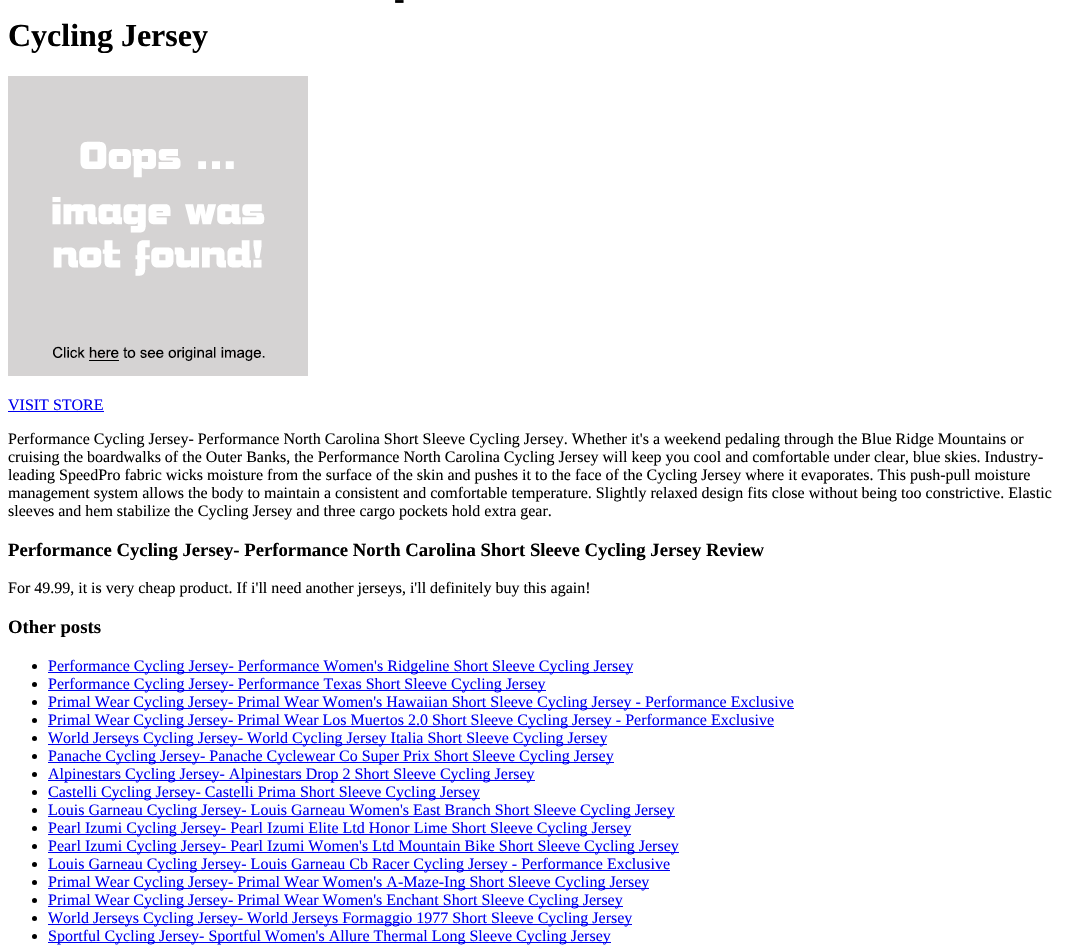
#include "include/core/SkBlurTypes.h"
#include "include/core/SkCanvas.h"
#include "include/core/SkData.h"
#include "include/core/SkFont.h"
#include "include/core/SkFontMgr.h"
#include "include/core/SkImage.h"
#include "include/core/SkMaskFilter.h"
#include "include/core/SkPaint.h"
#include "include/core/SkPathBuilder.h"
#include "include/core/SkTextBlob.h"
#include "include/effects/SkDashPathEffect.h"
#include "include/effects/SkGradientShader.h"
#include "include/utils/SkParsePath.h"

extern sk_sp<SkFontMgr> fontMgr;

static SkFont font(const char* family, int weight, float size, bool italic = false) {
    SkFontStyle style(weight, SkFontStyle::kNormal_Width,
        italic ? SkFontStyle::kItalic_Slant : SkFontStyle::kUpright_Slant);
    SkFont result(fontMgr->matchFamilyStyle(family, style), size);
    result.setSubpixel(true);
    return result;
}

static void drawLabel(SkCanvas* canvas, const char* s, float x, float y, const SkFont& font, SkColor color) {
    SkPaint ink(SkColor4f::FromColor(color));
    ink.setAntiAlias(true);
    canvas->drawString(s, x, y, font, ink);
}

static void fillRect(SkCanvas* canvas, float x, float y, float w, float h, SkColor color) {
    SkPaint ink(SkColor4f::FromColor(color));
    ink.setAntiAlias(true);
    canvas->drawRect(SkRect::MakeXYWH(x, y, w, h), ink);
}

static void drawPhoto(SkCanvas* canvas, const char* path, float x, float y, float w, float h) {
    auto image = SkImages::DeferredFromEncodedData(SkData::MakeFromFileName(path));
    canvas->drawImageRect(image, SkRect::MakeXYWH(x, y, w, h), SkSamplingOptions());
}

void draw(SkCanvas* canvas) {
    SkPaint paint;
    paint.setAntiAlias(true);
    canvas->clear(0xFFFFFFFF);
    SkFont font1 = font("Liberation Serif", 700, 32);
    drawLabel(canvas, "-", 394, 9, font1, 0xFF000000);
    drawLabel(canvas, "Cycling Jersey", 8, 46, font1, 0xFF000000);
    drawPhoto(canvas, "assets/img1.png", 8, 76, 300, 300);
    SkFont font2 = font("Liberation Serif", 400, 16);
    drawLabel(canvas, "VISIT STORE", 8, 410, font2, 0xFF0000EE);
    fillRect(canvas, 8, 411, 96, 1, 0xFF0000EE);
    drawLabel(canvas, "Performance Cycling Jersey- Performance North Carolina Short Sleeve Cycling Jersey. Whether it's a weekend pedaling through the Blue Ridge Mountains or", 8, 444, font2, 0xFF000000);
    drawLabel(canvas, "cruising the boardwalks of the Outer Banks, the Performance North Carolina Cycling Jersey will keep you cool and comfortable under clear, blue skies. Industry-", 8, 462, font2, 0xFF000000);
    drawLabel(canvas, "leading SpeedPro fabric wicks moisture from the surface of the skin and pushes it to the face of the Cycling Jersey where it evaporates. This push-pull moisture", 8, 480, font2, 0xFF000000);
    drawLabel(canvas, "management system allows the body to maintain a consistent and comfortable temperature. Slightly relaxed design fits close without being too constrictive. Elastic", 8, 498, font2, 0xFF000000);
    drawLabel(canvas, "sleeves and hem stabilize the Cycling Jersey and three cargo pockets hold extra gear.", 8, 516, font2, 0xFF000000);
    SkFont font3 = font("Liberation Serif", 700, 18.7f);
    drawLabel(canvas, "Performance Cycling Jersey- Performance North Carolina Short Sleeve Cycling Jersey Review", 8, 556, font3, 0xFF000000);
    drawLabel(canvas, "For 49.99, it is very cheap product. If i'll need another jerseys, i'll definitely buy this again!", 8, 593, font2, 0xFF000000);
    drawLabel(canvas, "Other posts", 8, 633, font3, 0xFF000000);
    paint.setColor(0xFF000000);
    canvas->drawCircle(34.5f, 666.5f, 2.5f, paint);
    fillRect(canvas, 48, 672, 585, 1, 0xFF0000EE);
    drawLabel(canvas, "Performance Cycling Jersey- Performance Women's Ridgeline Short Sleeve Cycling Jersey", 48, 671, font2, 0xFF0000EE);
    canvas->drawCircle(34.5f, 684.5f, 2.5f, paint);
    fillRect(canvas, 48, 690, 498, 1, 0xFF0000EE);
    drawLabel(canvas, "Performance Cycling Jersey- Performance Texas Short Sleeve Cycling Jersey", 48, 689, font2, 0xFF0000EE);
    canvas->drawCircle(34.5f, 702.5f, 2.5f, paint);
    fillRect(canvas, 48, 708, 746, 1, 0xFF0000EE);
    drawLabel(canvas, "Primal Wear Cycling Jersey- Primal Wear Women's Hawaiian Short Sleeve Cycling Jersey - Performance Exclusive", 48, 707, font2, 0xFF0000EE);
    canvas->drawCircle(34.5f, 720.5f, 2.5f, paint);
    fillRect(canvas, 48, 726, 726, 1, 0xFF0000EE);
    drawLabel(canvas, "Primal Wear Cycling Jersey- Primal Wear Los Muertos 2.0 Short Sleeve Cycling Jersey - Performance Exclusive", 48, 725, font2, 0xFF0000EE);
    canvas->drawCircle(34.5f, 738.5f, 2.5f, paint);
    fillRect(canvas, 48, 744, 559, 1, 0xFF0000EE);
    drawLabel(canvas, "World Jerseys Cycling Jersey- World Cycling Jersey Italia Short Sleeve Cycling Jersey", 48, 743, font2, 0xFF0000EE);
    canvas->drawCircle(34.5f, 756.5f, 2.5f, paint);
    fillRect(canvas, 48, 762, 566, 1, 0xFF0000EE);
    drawLabel(canvas, "Panache Cycling Jersey- Panache Cyclewear Co Super Prix Short Sleeve Cycling Jersey", 48, 761, font2, 0xFF0000EE);
    canvas->drawCircle(34.5f, 774.5f, 2.5f, paint);
    fillRect(canvas, 48, 780, 487, 1, 0xFF0000EE);
    drawLabel(canvas, "Alpinestars Cycling Jersey- Alpinestars Drop 2 Short Sleeve Cycling Jersey", 48, 779, font2, 0xFF0000EE);
    canvas->drawCircle(34.5f, 792.5f, 2.5f, paint);
    fillRect(canvas, 48, 798, 432, 1, 0xFF0000EE);
    drawLabel(canvas, "Castelli Cycling Jersey- Castelli Prima Short Sleeve Cycling Jersey", 48, 797, font2, 0xFF0000EE);
    canvas->drawCircle(34.5f, 810.5f, 2.5f, paint);
    fillRect(canvas, 48, 816, 627, 1, 0xFF0000EE);
    drawLabel(canvas, "Louis Garneau Cycling Jersey- Louis Garneau Women's East Branch Short Sleeve Cycling Jersey", 48, 815, font2, 0xFF0000EE);
    canvas->drawCircle(34.5f, 828.5f, 2.5f, paint);
    fillRect(canvas, 48, 834, 583, 1, 0xFF0000EE);
    drawLabel(canvas, "Pearl Izumi Cycling Jersey- Pearl Izumi Elite Ltd Honor Lime Short Sleeve Cycling Jersey", 48, 833, font2, 0xFF0000EE);
    canvas->drawCircle(34.5f, 846.5f, 2.5f, paint);
    fillRect(canvas, 48, 852, 631, 1, 0xFF0000EE);
    drawLabel(canvas, "Pearl Izumi Cycling Jersey- Pearl Izumi Women's Ltd Mountain Bike Short Sleeve Cycling Jersey", 48, 851, font2, 0xFF0000EE);
    canvas->drawCircle(34.5f, 864.5f, 2.5f, paint);
    fillRect(canvas, 48, 870, 622, 1, 0xFF0000EE);
    drawLabel(canvas, "Louis Garneau Cycling Jersey- Louis Garneau Cb Racer Cycling Jersey - Performance Exclusive", 48, 869, font2, 0xFF0000EE);
    canvas->drawCircle(34.5f, 882.5f, 2.5f, paint);
    fillRect(canvas, 48, 888, 601, 1, 0xFF0000EE);
    drawLabel(canvas, "Primal Wear Cycling Jersey- Primal Wear Women's A-Maze-Ing Short Sleeve Cycling Jersey", 48, 887, font2, 0xFF0000EE);
    canvas->drawCircle(34.5f, 900.5f, 2.5f, paint);
    fillRect(canvas, 48, 906, 575, 1, 0xFF0000EE);
    drawLabel(canvas, "Primal Wear Cycling Jersey- Primal Wear Women's Enchant Short Sleeve Cycling Jersey", 48, 905, font2, 0xFF0000EE);
    canvas->drawCircle(34.5f, 918.5f, 2.5f, paint);
    fillRect(canvas, 48, 924, 584, 1, 0xFF0000EE);
    drawLabel(canvas, "World Jerseys Cycling Jersey- World Jerseys Formaggio 1977 Short Sleeve Cycling Jersey", 48, 923, font2, 0xFF0000EE);
    canvas->drawCircle(34.5f, 936.5f, 2.5f, paint);
    fillRect(canvas, 48, 942, 563, 1, 0xFF0000EE);
    drawLabel(canvas, "Sportful Cycling Jersey- Sportful Women's Allure Thermal Long Sleeve Cycling Jersey", 48, 941, font2, 0xFF0000EE);
}
